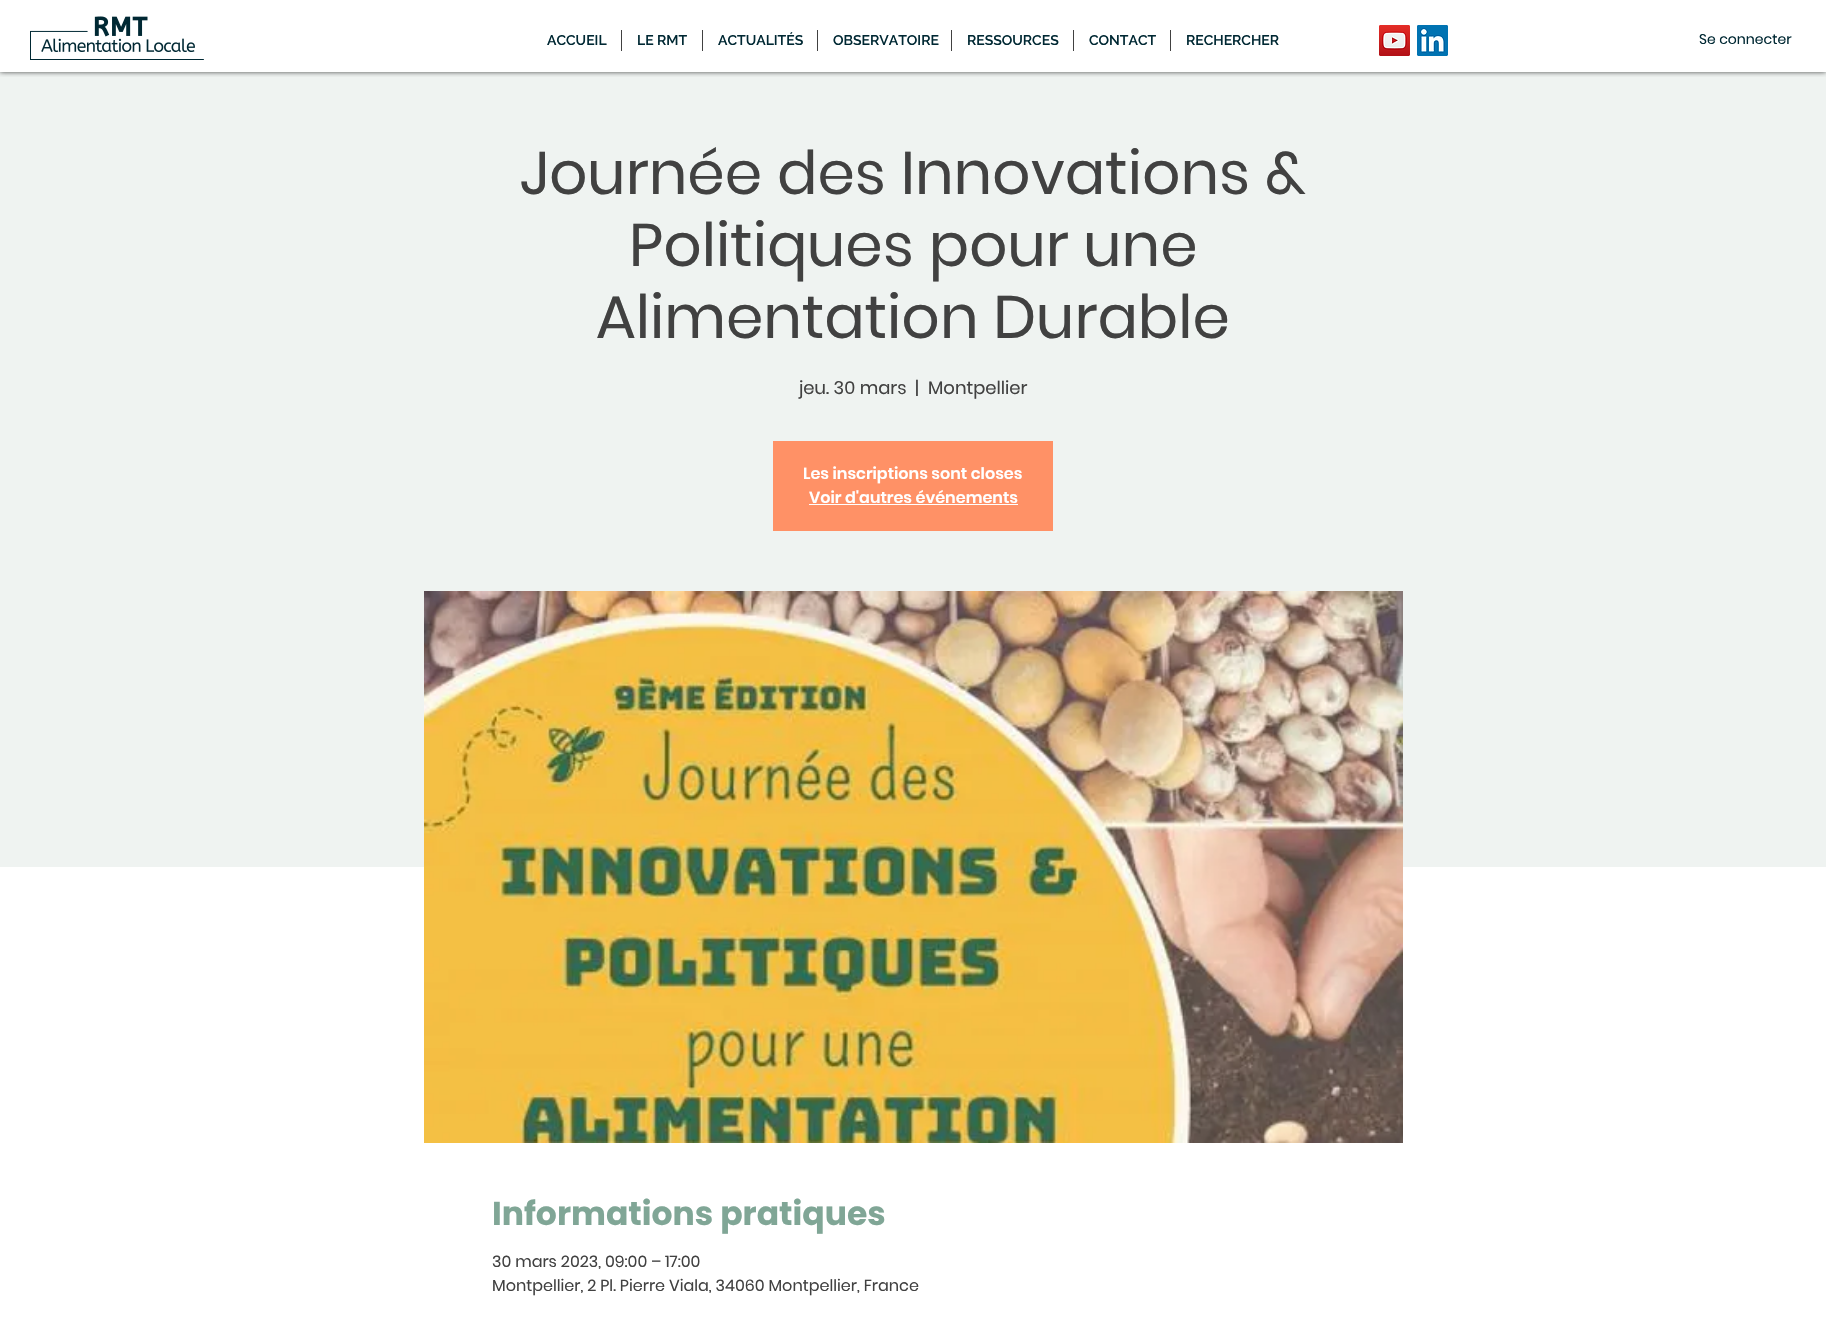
#include "include/core/SkBlurTypes.h"
#include "include/core/SkCanvas.h"
#include "include/core/SkData.h"
#include "include/core/SkFont.h"
#include "include/core/SkFontMgr.h"
#include "include/core/SkImage.h"
#include "include/core/SkMaskFilter.h"
#include "include/core/SkPaint.h"
#include "include/core/SkPathBuilder.h"
#include "include/core/SkTextBlob.h"
#include "include/effects/SkDashPathEffect.h"
#include "include/effects/SkGradientShader.h"
#include "include/utils/SkParsePath.h"

extern sk_sp<SkFontMgr> fontMgr;

static SkFont font(const char* family, int weight, float size, bool italic = false) {
    SkFontStyle style(weight, SkFontStyle::kNormal_Width,
        italic ? SkFontStyle::kItalic_Slant : SkFontStyle::kUpright_Slant);
    SkFont result(fontMgr->matchFamilyStyle(family, style), size);
    result.setSubpixel(true);
    return result;
}

static void drawLabel(SkCanvas* canvas, const char* s, float x, float y, const SkFont& font, SkColor color) {
    SkPaint ink(SkColor4f::FromColor(color));
    ink.setAntiAlias(true);
    canvas->drawString(s, x, y, font, ink);
}

static void fillRect(SkCanvas* canvas, float x, float y, float w, float h, SkColor color) {
    SkPaint ink(SkColor4f::FromColor(color));
    ink.setAntiAlias(true);
    canvas->drawRect(SkRect::MakeXYWH(x, y, w, h), ink);
}

static void drawPhoto(SkCanvas* canvas, const char* path, float x, float y, float w, float h) {
    auto image = SkImages::DeferredFromEncodedData(SkData::MakeFromFileName(path));
    canvas->drawImageRect(image, SkRect::MakeXYWH(x, y, w, h), SkSamplingOptions());
}

void draw(SkCanvas* canvas) {
    SkPaint paint;
    paint.setAntiAlias(true);
    canvas->clear(0xFFFFFFFF);
    fillRect(canvas, 0, 72, 1826, 795, 0xFFEFF3F1);
    canvas->save();
    canvas->clipRect(SkRect::MakeXYWH(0, 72, 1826, 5));
    paint.setColor(0xB3000000);
    paint.setMaskFilter(SkMaskFilter::MakeBlur(kNormal_SkBlurStyle, 2.5f));
    canvas->drawRect(SkRect::MakeXYWH(0, 0, 1826, 72), paint);
    paint.setMaskFilter(nullptr);
    canvas->restore();
    drawPhoto(canvas, "assets/img1.png", 30, 16, 174, 44);
    SkFont font1 = font("Raleway", 600, 14);
    drawLabel(canvas, "ACCUEIL", 547, 45, font1, 0xFF002833);
    fillRect(canvas, 621, 30, 1, 21, 0xFF414141);
    drawLabel(canvas, "LE RMT", 637, 45, font1, 0xFF002833);
    fillRect(canvas, 702, 30, 1, 21, 0xFF414141);
    drawLabel(canvas, "ACTUALITÉS", 718, 45, font1, 0xFF002833);
    fillRect(canvas, 817, 30, 1, 21, 0xFF414141);
    drawLabel(canvas, "OBSERVATOIRE", 833, 45, font1, 0xFF002833);
    fillRect(canvas, 951, 30, 1, 21, 0xFF414141);
    drawLabel(canvas, "RESSOURCES", 967, 45, font1, 0xFF002833);
    fillRect(canvas, 1073, 30, 1, 21, 0xFF414141);
    drawLabel(canvas, "CONTACT", 1089, 45, font1, 0xFF002833);
    fillRect(canvas, 1170, 30, 1, 21, 0xFF414141);
    drawLabel(canvas, "RECHERCHER", 1186, 45, font1, 0xFF002833);
    drawPhoto(canvas, "assets/img2.png", 1379, 25, 31, 31);
    drawPhoto(canvas, "assets/img3.png", 1417, 25, 31, 31);
    SkFont font2 = font("Poppins", 400, 14);
    drawLabel(canvas, "Se connecter", 1699, 44, font2, 0xFF002833);
    SkFont font3 = font("Poppins", 400, 60);
    drawLabel(canvas, "Journée des Innovations &", 520, 194, font3, 0xFF414141);
    drawLabel(canvas, "Politiques pour une", 629, 266, font3, 0xFF414141);
    drawLabel(canvas, "Alimentation Durable", 596, 338, font3, 0xFF414141);
    SkFont font4 = font("Poppins", 400, 18);
    drawLabel(canvas, "jeu. 30 mars", 799, 394, font4, 0xFF414141);
    drawLabel(canvas, "|", 915, 394, font4, 0xFF414141);
    drawLabel(canvas, "Montpellier", 928, 394, font4, 0xFF414141);
    fillRect(canvas, 773, 441, 280, 90, 0xFFFF9166);
    SkFont font5 = font("Poppins", 600, 16);
    drawLabel(canvas, "Les inscriptions sont closes", 803, 479, font5, 0xFFFFFFFF);
    drawLabel(canvas, "Voir d'autres événements", 809, 503, font5, 0xFFFFFFFF);
    fillRect(canvas, 809, 504, 209, 1, 0xFFFFFFFF);
    drawPhoto(canvas, "assets/img4.png", 424, 591, 979, 552);
    SkFont font6 = font("Poppins", 700, 33);
    drawLabel(canvas, "Informations pratiques", 492, 1225, font6, 0xFF80A696);
    SkFont font7 = font("Poppins", 400, 16);
    drawLabel(canvas, "30 mars 2023, 09:00 – 17:00", 492, 1267, font7, 0xFF414141);
    drawLabel(canvas, "Montpellier, 2 Pl. Pierre Viala, 34060 Montpellier, France", 492, 1291, font7, 0xFF414141);
}
